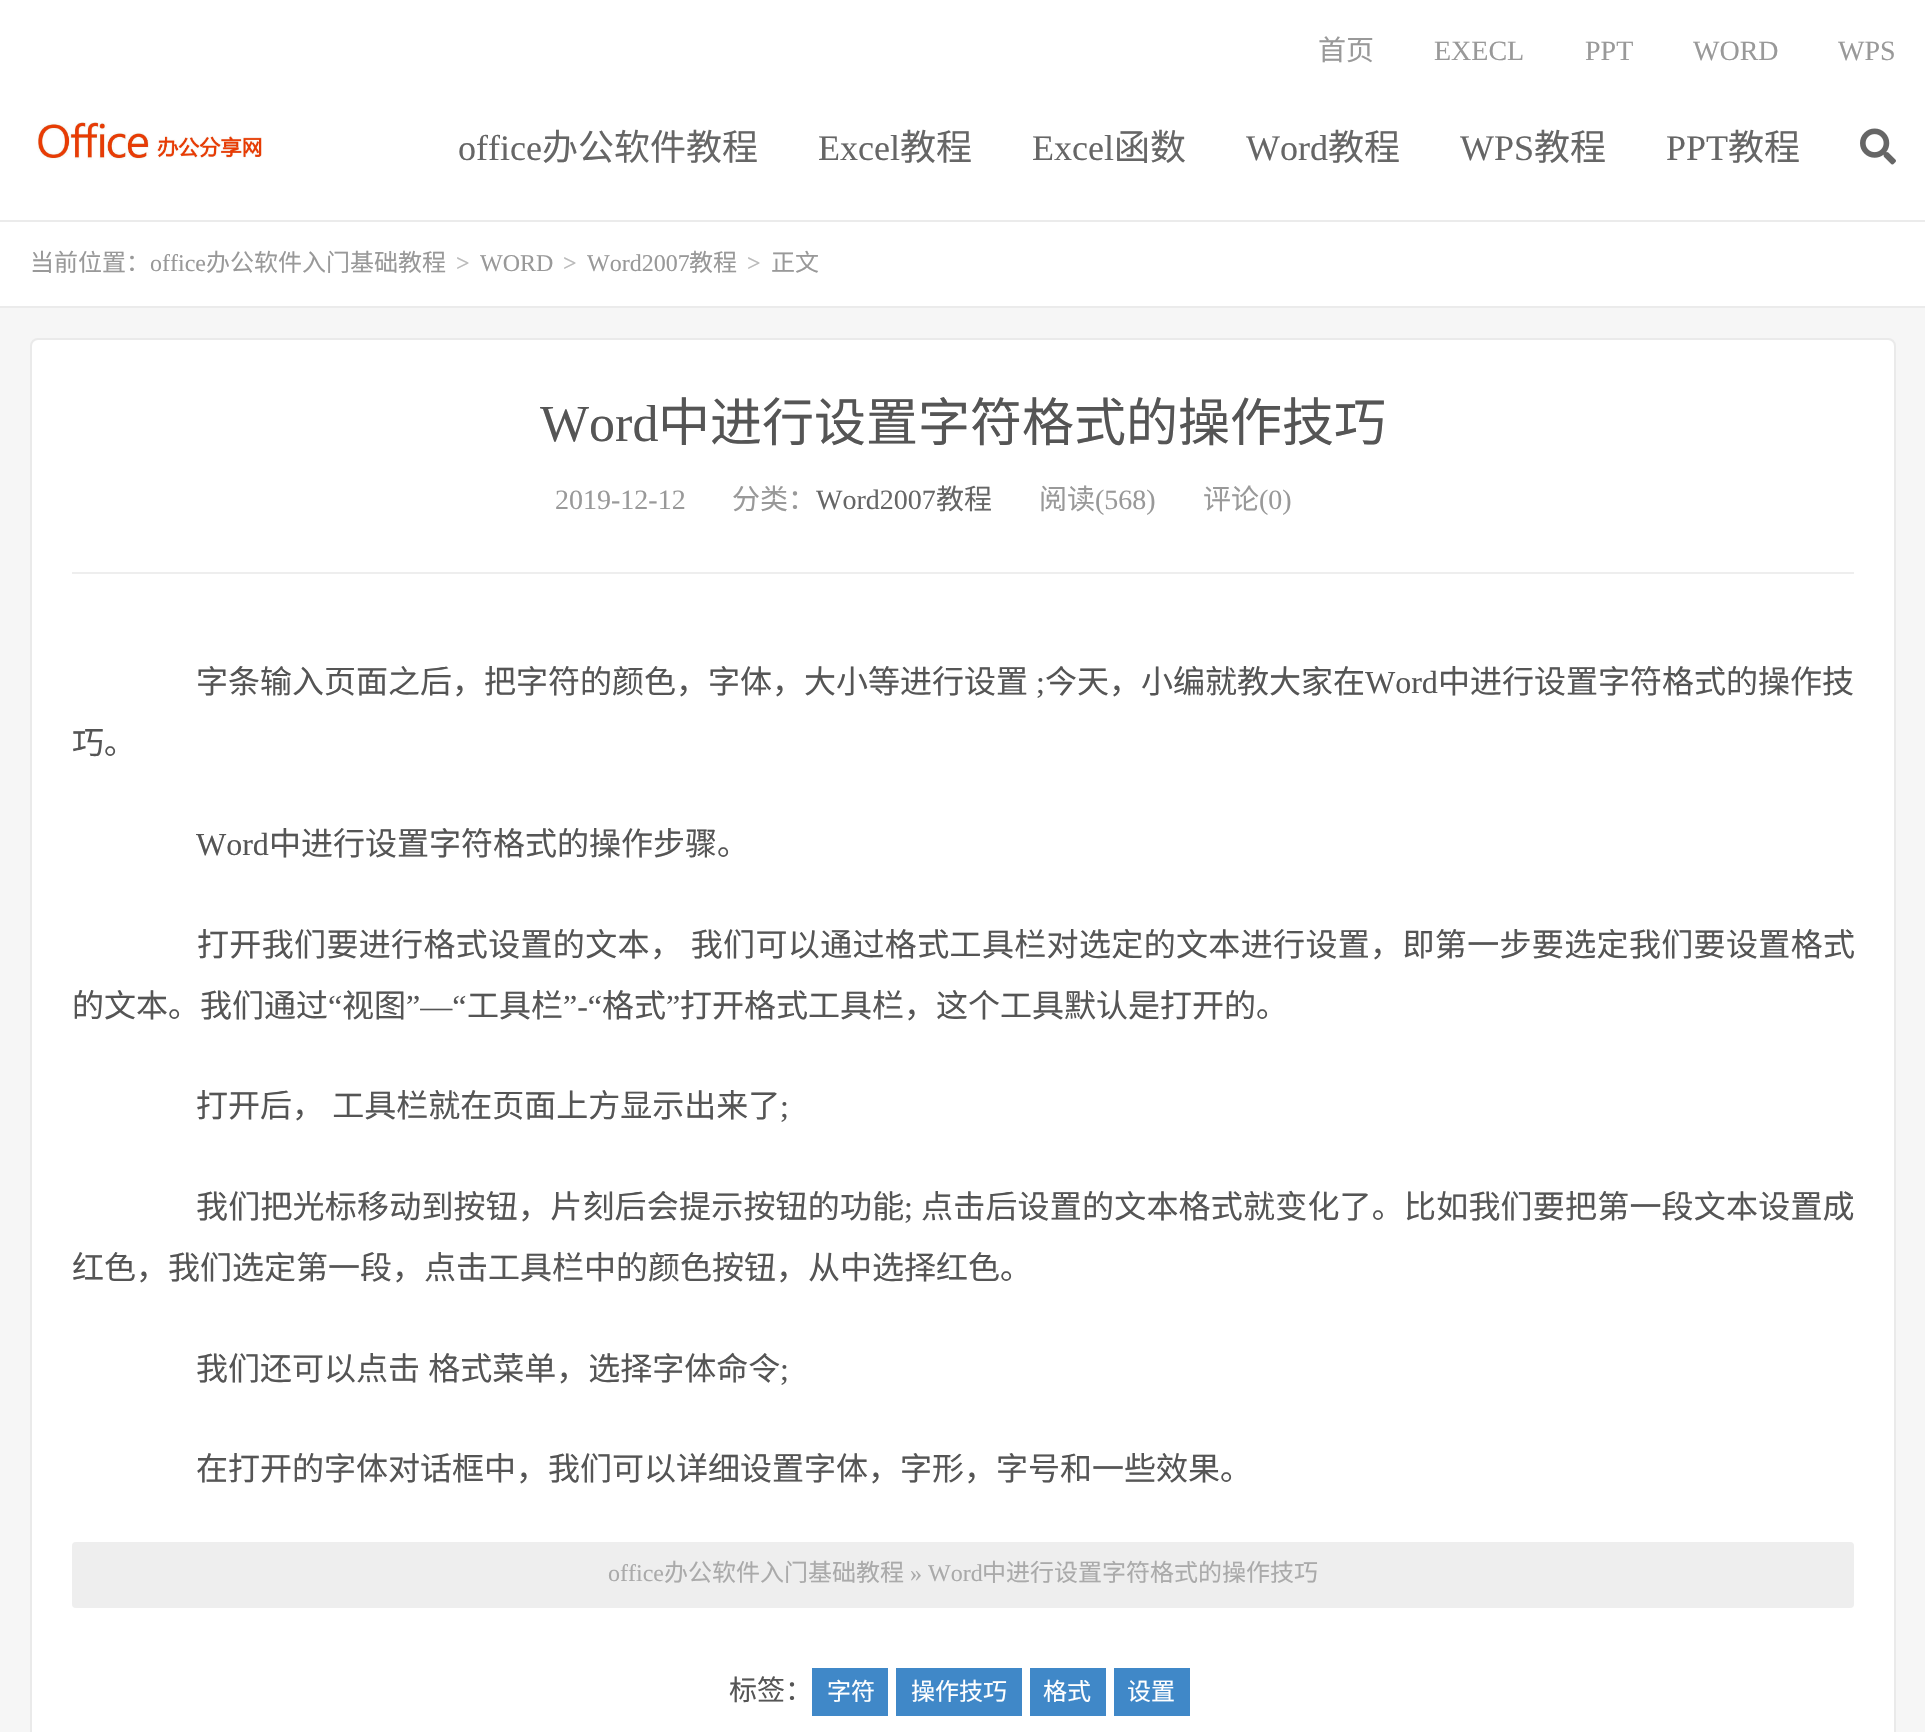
#include "include/core/SkBlurTypes.h"
#include "include/core/SkCanvas.h"
#include "include/core/SkData.h"
#include "include/core/SkFont.h"
#include "include/core/SkFontMgr.h"
#include "include/core/SkImage.h"
#include "include/core/SkMaskFilter.h"
#include "include/core/SkPaint.h"
#include "include/core/SkPathBuilder.h"
#include "include/core/SkTextBlob.h"
#include "include/effects/SkDashPathEffect.h"
#include "include/effects/SkGradientShader.h"
#include "include/utils/SkParsePath.h"

extern sk_sp<SkFontMgr> fontMgr;

static SkFont font(const char* family, int weight, float size, bool italic = false) {
    SkFontStyle style(weight, SkFontStyle::kNormal_Width,
        italic ? SkFontStyle::kItalic_Slant : SkFontStyle::kUpright_Slant);
    SkFont result(fontMgr->matchFamilyStyle(family, style), size);
    result.setSubpixel(true);
    return result;
}

static void drawLabel(SkCanvas* canvas, const char* s, float x, float y, const SkFont& font, SkColor color) {
    SkPaint ink(SkColor4f::FromColor(color));
    ink.setAntiAlias(true);
    canvas->drawString(s, x, y, font, ink);
}

static void drawTracked(SkCanvas* canvas, const char* s, float x, float y, const SkFont& font, const SkPaint& ink, float letter, float word) {
    std::vector<SkGlyphID> glyphs(font.countText(s, strlen(s), SkTextEncoding::kUTF8));
    std::vector<float> xs(glyphs.size());
    font.textToGlyphs(s, strlen(s), SkTextEncoding::kUTF8, glyphs);
    font.getXPos(glyphs, xs, x);
    float extra = 0;
    for (size_t i = 0; i < glyphs.size(); i++) {
        xs[i] += extra;
        extra += letter + word * (glyphs[i] == font.unicharToGlyph(' '));
    }
    canvas->drawTextBlob(SkTextBlob::MakeFromPosHGlyphs(glyphs, xs, y, font), 0, 0, ink);
}

static void fillRect(SkCanvas* canvas, float x, float y, float w, float h, SkColor color) {
    SkPaint ink(SkColor4f::FromColor(color));
    ink.setAntiAlias(true);
    canvas->drawRect(SkRect::MakeXYWH(x, y, w, h), ink);
}

static void fillRRect(SkCanvas* canvas, float x, float y, float w, float h, float radius, SkColor color) {
    SkPaint ink(SkColor4f::FromColor(color));
    ink.setAntiAlias(true);
    canvas->drawRoundRect(SkRect::MakeXYWH(x, y, w, h), radius, radius, ink);
}

static void drawPhoto(SkCanvas* canvas, const char* path, float x, float y, float w, float h) {
    auto image = SkImages::DeferredFromEncodedData(SkData::MakeFromFileName(path));
    canvas->drawImageRect(image, SkRect::MakeXYWH(x, y, w, h), SkSamplingOptions());
}

void draw(SkCanvas* canvas) {
    SkPaint paint;
    paint.setAntiAlias(true);
    canvas->clear(0xFFF6F6F6);
    fillRect(canvas, 0, 0, 1925, 220, 0xFFFFFFFF);
    fillRect(canvas, 0, 220, 1925, 2, 0xFFEBEBEB);
    SkFont font1 = font("Noto Sans CJK SC", 400, 28);
    drawLabel(canvas, "首页", 1318, 60, font1, 0xFF999999);
    SkFont font2 = font("Liberation Serif", 400, 28);
    drawLabel(canvas, "EXECL", 1434, 60, font2, 0xFF999999);
    drawLabel(canvas, "PPT", 1585, 60, font2, 0xFF999999);
    drawLabel(canvas, "WORD", 1693, 60, font2, 0xFF999999);
    drawLabel(canvas, "WPS", 1838, 60, font2, 0xFF999999);
    drawPhoto(canvas, "assets/img1.png", 37, 122, 225, 38);
    SkFont font3 = font("Liberation Serif", 400, 36);
    drawLabel(canvas, "office", 458, 160, font3, 0xFF666666);
    SkFont font4 = font("Noto Sans CJK SC", 400, 36);
    drawLabel(canvas, "办公软件教程", 542, 160, font4, 0xFF666666);
    drawLabel(canvas, "Excel", 818, 160, font3, 0xFF666666);
    drawLabel(canvas, "教程", 900, 160, font4, 0xFF666666);
    drawLabel(canvas, "Excel", 1032, 160, font3, 0xFF666666);
    drawLabel(canvas, "函数", 1114, 160, font4, 0xFF666666);
    drawLabel(canvas, "Word", 1246, 160, font3, 0xFF666666);
    drawLabel(canvas, "教程", 1328, 160, font4, 0xFF666666);
    drawLabel(canvas, "WPS", 1460, 160, font3, 0xFF666666);
    drawLabel(canvas, "教程", 1534, 160, font4, 0xFF666666);
    drawLabel(canvas, "PPT", 1666, 160, font3, 0xFF666666);
    drawLabel(canvas, "教程", 1728, 160, font4, 0xFF666666);
    drawPhoto(canvas, "assets/img2.png", 1860, 128, 36, 37);
    fillRect(canvas, 0, 222, 1925, 84, 0xFFFFFFFF);
    fillRect(canvas, 0, 306, 1925, 2, 0xFFEBEBEB);
    SkFont font5 = font("Noto Sans CJK SC", 400, 24);
    drawLabel(canvas, "当前位置：", 30, 271, font5, 0xFF999999);
    SkFont font6 = font("Liberation Serif", 400, 24);
    drawLabel(canvas, "office", 150, 271, font6, 0xFF999999);
    drawLabel(canvas, "办公软件入门基础教程", 206, 271, font5, 0xFF999999);
    SkFont font7 = font("Liberation Serif", 700, 24);
    drawLabel(canvas, ">", 456, 271, font7, 0xFFBBBBBB);
    drawLabel(canvas, "WORD", 480, 271, font6, 0xFF999999);
    drawLabel(canvas, ">", 563, 271, font7, 0xFFBBBBBB);
    drawLabel(canvas, "Word2007", 587, 271, font6, 0xFF999999);
    drawLabel(canvas, "教程", 689, 271, font5, 0xFF999999);
    drawLabel(canvas, ">", 747, 271, font7, 0xFFBBBBBB);
    drawLabel(canvas, "正文", 771, 271, font5, 0xFF999999);
    paint.setColor(0xFFFFFFFF);
    canvas->drawRoundRect(SkRect::MakeXYWH(31, 339, 1864, 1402), 7, 7, paint);
    paint.setStroke(true);
    paint.setStrokeWidth(2);
    paint.setColor(0xFFEAEAEA);
    canvas->drawRoundRect(SkRect::MakeXYWH(31, 339, 1864, 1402), 7, 7, paint);
    fillRect(canvas, 72, 572, 1782, 2, 0xFFEEEEEE);
    SkFont font8 = font("Liberation Serif", 400, 52);
    drawLabel(canvas, "Word", 540, 441, font8, 0xFF555555);
    SkFont font9 = font("Noto Sans CJK SC", 400, 52);
    drawLabel(canvas, "中进行设置字符格式的操作技巧", 658, 441, font9, 0xFF555555);
    drawLabel(canvas, "2019-12-12", 555, 509, font2, 0xFF999999);
    drawLabel(canvas, "分类：", 732, 509, font1, 0xFF999999);
    drawLabel(canvas, "Word2007", 816, 509, font2, 0xFF666666);
    drawLabel(canvas, "教程", 936, 509, font1, 0xFF666666);
    drawLabel(canvas, "阅读", 1039, 509, font1, 0xFF999999);
    drawLabel(canvas, "(568)", 1095, 509, font2, 0xFF999999);
    drawLabel(canvas, "评论", 1203, 509, font1, 0xFF999999);
    drawLabel(canvas, "(0)", 1259, 509, font2, 0xFF999999);
    SkFont font10 = font("Noto Sans CJK SC", 400, 32);
    drawLabel(canvas, "字条输入页面之后，把字符的颜色，字体，大小等进行设置", 196, 693, font10, 0xFF555555);
    SkFont font11 = font("Liberation Serif", 400, 32);
    drawLabel(canvas, ";", 1036, 693, font11, 0xFF555555);
    drawLabel(canvas, "今天，小编就教大家在", 1045, 693, font10, 0xFF555555);
    drawLabel(canvas, "Word", 1365, 693, font11, 0xFF555555);
    drawLabel(canvas, "中进行设置字符格式的操作技", 1438, 693, font10, 0xFF555555);
    drawLabel(canvas, "巧。", 72, 754, font10, 0xFF555555);
    drawLabel(canvas, "Word", 196, 855, font11, 0xFF555555);
    drawLabel(canvas, "中进行设置字符格式的操作步骤。", 269, 855, font10, 0xFF555555);
    paint.setStroke(false);
    paint.setColor(0xFF555555);
    drawTracked(canvas, "打开我们要进行格式设置的文本， 我们可以通过格式工具栏对选定的文本进行设置，即第一步要选定我们要设置格式", 197, 956, font10, paint, 0.35f, 1);
    drawLabel(canvas, "的文本。我们通过", 72, 1017, font10, 0xFF555555);
    drawLabel(canvas, "“", 328, 1017, font11, 0xFF555555);
    drawLabel(canvas, "视图", 342, 1017, font10, 0xFF555555);
    drawLabel(canvas, "”—“", 406, 1017, font11, 0xFF555555);
    drawLabel(canvas, "工具栏", 467, 1017, font10, 0xFF555555);
    drawLabel(canvas, "”-“", 563, 1017, font11, 0xFF555555);
    drawLabel(canvas, "格式", 602, 1017, font10, 0xFF555555);
    drawLabel(canvas, "”", 666, 1017, font11, 0xFF555555);
    drawLabel(canvas, "打开格式工具栏，这个工具默认是打开的。", 680, 1017, font10, 0xFF555555);
    drawTracked(canvas, "打开后， 工具栏就在页面上方显示出来了", 196, 1117, font10, paint, 0, 1);
    drawLabel(canvas, ";", 780, 1117, font11, 0xFF555555);
    drawTracked(canvas, "我们把光标移动到按钮，片刻后会提示按钮的功能", 196, 1218, font10, paint, 0.2f, 0);
    drawTracked(canvas, ";", 904, 1218, font11, paint, 0.2f, 0);
    drawTracked(canvas, "点击后设置的文本格式就变化了。比如我们要把第一段文本设置成", 921, 1218, font10, paint, 0.2f, 0);
    drawLabel(canvas, "红色，我们选定第一段，点击工具栏中的颜色按钮，从中选择红色。", 72, 1279, font10, 0xFF555555);
    drawTracked(canvas, "我们还可以点击 格式菜单，选择字体命令", 196, 1380, font10, paint, 0, 1);
    drawLabel(canvas, ";", 780, 1380, font11, 0xFF555555);
    drawLabel(canvas, "在打开的字体对话框中，我们可以详细设置字体，字形，字号和一些效果。", 196, 1480, font10, 0xFF555555);
    fillRRect(canvas, 72, 1542, 1782, 66, 4, 0xFFEEEEEE);
    drawLabel(canvas, "office", 608, 1581, font6, 0xFFAAAAAA);
    drawLabel(canvas, "办公软件入门基础教程", 664, 1581, font5, 0xFFAAAAAA);
    drawLabel(canvas, "» Word", 910, 1581, font6, 0xFFAAAAAA);
    drawLabel(canvas, "中进行设置字符格式的操作技巧", 982, 1581, font5, 0xFFAAAAAA);
    drawLabel(canvas, "标签：", 729, 1700, font1, 0xFF555555);
    fillRect(canvas, 812, 1668, 76, 48, 0xFF4088C8);
    drawLabel(canvas, "字符", 827, 1700, font5, 0xFFFFFFFF);
    fillRect(canvas, 896, 1668, 126, 48, 0xFF4088C8);
    drawLabel(canvas, "操作技巧", 911, 1700, font5, 0xFFFFFFFF);
    fillRect(canvas, 1030, 1668, 76, 48, 0xFF4088C8);
    drawLabel(canvas, "格式", 1043, 1700, font5, 0xFFFFFFFF);
    fillRect(canvas, 1114, 1668, 76, 48, 0xFF4088C8);
    drawLabel(canvas, "设置", 1127, 1700, font5, 0xFFFFFFFF);
}
